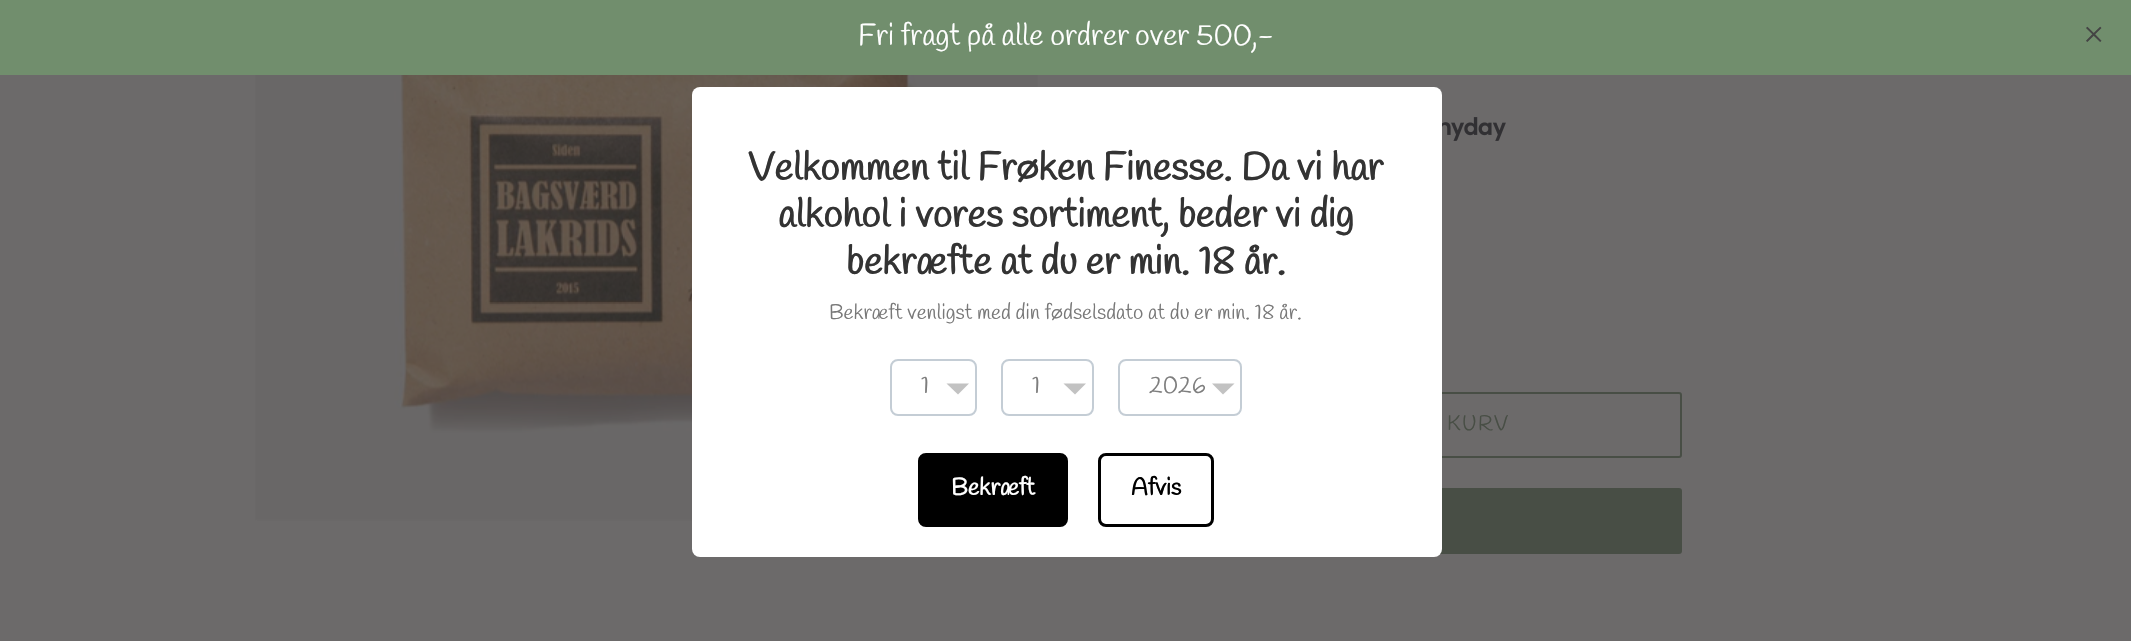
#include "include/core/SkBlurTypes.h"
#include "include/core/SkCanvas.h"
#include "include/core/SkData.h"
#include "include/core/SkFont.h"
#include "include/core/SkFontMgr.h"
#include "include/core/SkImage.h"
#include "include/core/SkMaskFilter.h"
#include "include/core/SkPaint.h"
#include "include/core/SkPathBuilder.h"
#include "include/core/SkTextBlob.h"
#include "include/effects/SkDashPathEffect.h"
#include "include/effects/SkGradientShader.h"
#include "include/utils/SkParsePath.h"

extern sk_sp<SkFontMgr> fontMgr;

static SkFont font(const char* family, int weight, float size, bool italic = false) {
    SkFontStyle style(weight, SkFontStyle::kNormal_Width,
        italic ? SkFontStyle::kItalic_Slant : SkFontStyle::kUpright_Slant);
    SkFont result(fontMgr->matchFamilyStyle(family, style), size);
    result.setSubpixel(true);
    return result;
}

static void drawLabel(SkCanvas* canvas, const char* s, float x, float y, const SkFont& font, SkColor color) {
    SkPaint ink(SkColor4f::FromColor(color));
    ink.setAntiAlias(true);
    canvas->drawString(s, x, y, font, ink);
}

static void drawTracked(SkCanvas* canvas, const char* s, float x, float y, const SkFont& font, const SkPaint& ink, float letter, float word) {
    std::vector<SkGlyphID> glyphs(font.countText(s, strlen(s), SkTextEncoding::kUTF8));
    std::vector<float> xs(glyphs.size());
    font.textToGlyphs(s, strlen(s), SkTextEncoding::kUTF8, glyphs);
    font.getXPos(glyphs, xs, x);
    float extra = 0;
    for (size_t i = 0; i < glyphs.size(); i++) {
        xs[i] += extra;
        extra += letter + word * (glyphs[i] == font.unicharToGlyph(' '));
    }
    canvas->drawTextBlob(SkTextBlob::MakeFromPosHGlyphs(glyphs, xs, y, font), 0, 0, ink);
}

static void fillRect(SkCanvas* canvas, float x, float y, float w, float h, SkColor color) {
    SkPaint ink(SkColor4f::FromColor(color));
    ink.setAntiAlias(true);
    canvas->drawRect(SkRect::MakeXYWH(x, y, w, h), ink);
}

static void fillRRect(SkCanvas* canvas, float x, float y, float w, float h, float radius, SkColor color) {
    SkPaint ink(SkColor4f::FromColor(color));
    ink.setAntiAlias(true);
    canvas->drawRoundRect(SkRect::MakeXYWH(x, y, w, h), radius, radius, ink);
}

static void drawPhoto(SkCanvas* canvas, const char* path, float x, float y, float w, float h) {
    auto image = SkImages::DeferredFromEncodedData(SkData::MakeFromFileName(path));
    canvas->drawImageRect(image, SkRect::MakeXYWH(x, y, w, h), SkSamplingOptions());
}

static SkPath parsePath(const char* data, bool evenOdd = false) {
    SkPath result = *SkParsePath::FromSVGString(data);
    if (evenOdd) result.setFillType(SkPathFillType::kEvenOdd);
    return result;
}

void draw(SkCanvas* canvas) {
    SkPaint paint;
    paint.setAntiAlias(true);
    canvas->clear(0xFF6C6A6A);
    fillRect(canvas, 0, 0, 2131, 75, 0xFF718E6D);
    SkFont font1 = font("Handlee", 400, 30);
    drawLabel(canvas, "Fri fragt på alle ordrer", 858, 45, font1, 0xFFFFFFFF);
    drawLabel(canvas, "over 500,-", 1135, 45, font1, 0xFFFFFFFF);
    SkFont font2 = font("Liberation Serif", 400, 38);
    drawLabel(canvas, "×", 2083, 47, font2, 0xFF444444);
    drawPhoto(canvas, "assets/img1.png", 255, 75, 783, 446);
    paint.setStroke(true);
    paint.setStrokeWidth(2);
    paint.setColor(0xFF484E45);
    canvas->drawRoundRect(SkRect::MakeXYWH(1098, 393, 583, 64), 2, 2, paint);
    fillRRect(canvas, 1097, 488, 585, 66, 3, 0xFF484E45);
    fillRRect(canvas, 692, 87, 750, 470, 8, 0xFFFFFFFF);
    SkFont font3 = font("Handlee", 700, 39);
    drawLabel(canvas, "Velkommen til Frøken Finesse. Da vi har", 748, 180, font3, 0xFF333333);
    drawLabel(canvas, "alkohol i vores sortiment, beder vi dig", 778, 227, font3, 0xFF333333);
    drawLabel(canvas, "bekræfte at du er min. 18 år.", 846, 274, font3, 0xFF333333);
    SkFont font4 = font("Handlee", 400, 21);
    drawLabel(canvas, "Bekræft venligst med din fødselsdato at du er min. 18 år.", 829, 319, font4, 0xFF787878);
    paint.setStroke(false);
    paint.setColor(0xFFC2C2C2);
    canvas->drawPath(parsePath("M946.5 383.5L958 394.5L969 383.5Z"), paint);
    paint.setStroke(true);
    paint.setColor(0xFFC4CDD5);
    canvas->drawRoundRect(SkRect::MakeXYWH(891, 360, 85, 55), 7, 7, paint);
    SkFont font5 = font("Handlee", 400, 24);
    drawLabel(canvas, "1", 921, 393, font5, 0xFF7E7E7E);
    paint.setStroke(false);
    paint.setColor(0xFFC2C2C2);
    canvas->drawPath(parsePath("M1063.5 383.5L1075 394.5L1086 383.5Z"), paint);
    paint.setStroke(true);
    paint.setColor(0xFFC4CDD5);
    canvas->drawRoundRect(SkRect::MakeXYWH(1002, 360, 91, 55), 7, 7, paint);
    drawLabel(canvas, "1", 1032, 393, font5, 0xFF7E7E7E);
    paint.setStroke(false);
    paint.setColor(0xFFC2C2C2);
    canvas->drawPath(parsePath("M1212 383.5L1223 394.5L1234.5 383.5Z"), paint);
    paint.setStroke(true);
    paint.setColor(0xFFC4CDD5);
    canvas->drawRoundRect(SkRect::MakeXYWH(1119, 360, 122, 55), 7, 7, paint);
    drawLabel(canvas, "2026", 1149, 393, font5, 0xFF7E7E7E);
    paint.setStroke(false);
    paint.setColor(0xFF000000);
    canvas->drawRoundRect(SkRect::MakeXYWH(919.5f, 454.5f, 147, 71), 6.5f, 6.5f, paint);
    paint.setStroke(true);
    paint.setStrokeWidth(3);
    canvas->drawRoundRect(SkRect::MakeXYWH(919.5f, 454.5f, 147, 71), 6.5f, 6.5f, paint);
    SkFont font6 = font("Handlee", 700, 24);
    drawLabel(canvas, "Bekræft", 951, 495, font6, 0xFFFFFFFF);
    canvas->drawRoundRect(SkRect::MakeXYWH(1099.5f, 454.5f, 113, 71), 6.5f, 6.5f, paint);
    drawLabel(canvas, "Afvis", 1131, 495, font6, 0xFF000000);
    drawPhoto(canvas, "assets/img2.png", 1442, 117, 64, 24);
    paint.setStroke(false);
    paint.setColor(0xFF484E45);
    drawTracked(canvas, "KURV", 1447, 430, font4, paint, 1.5f, 0);
}
